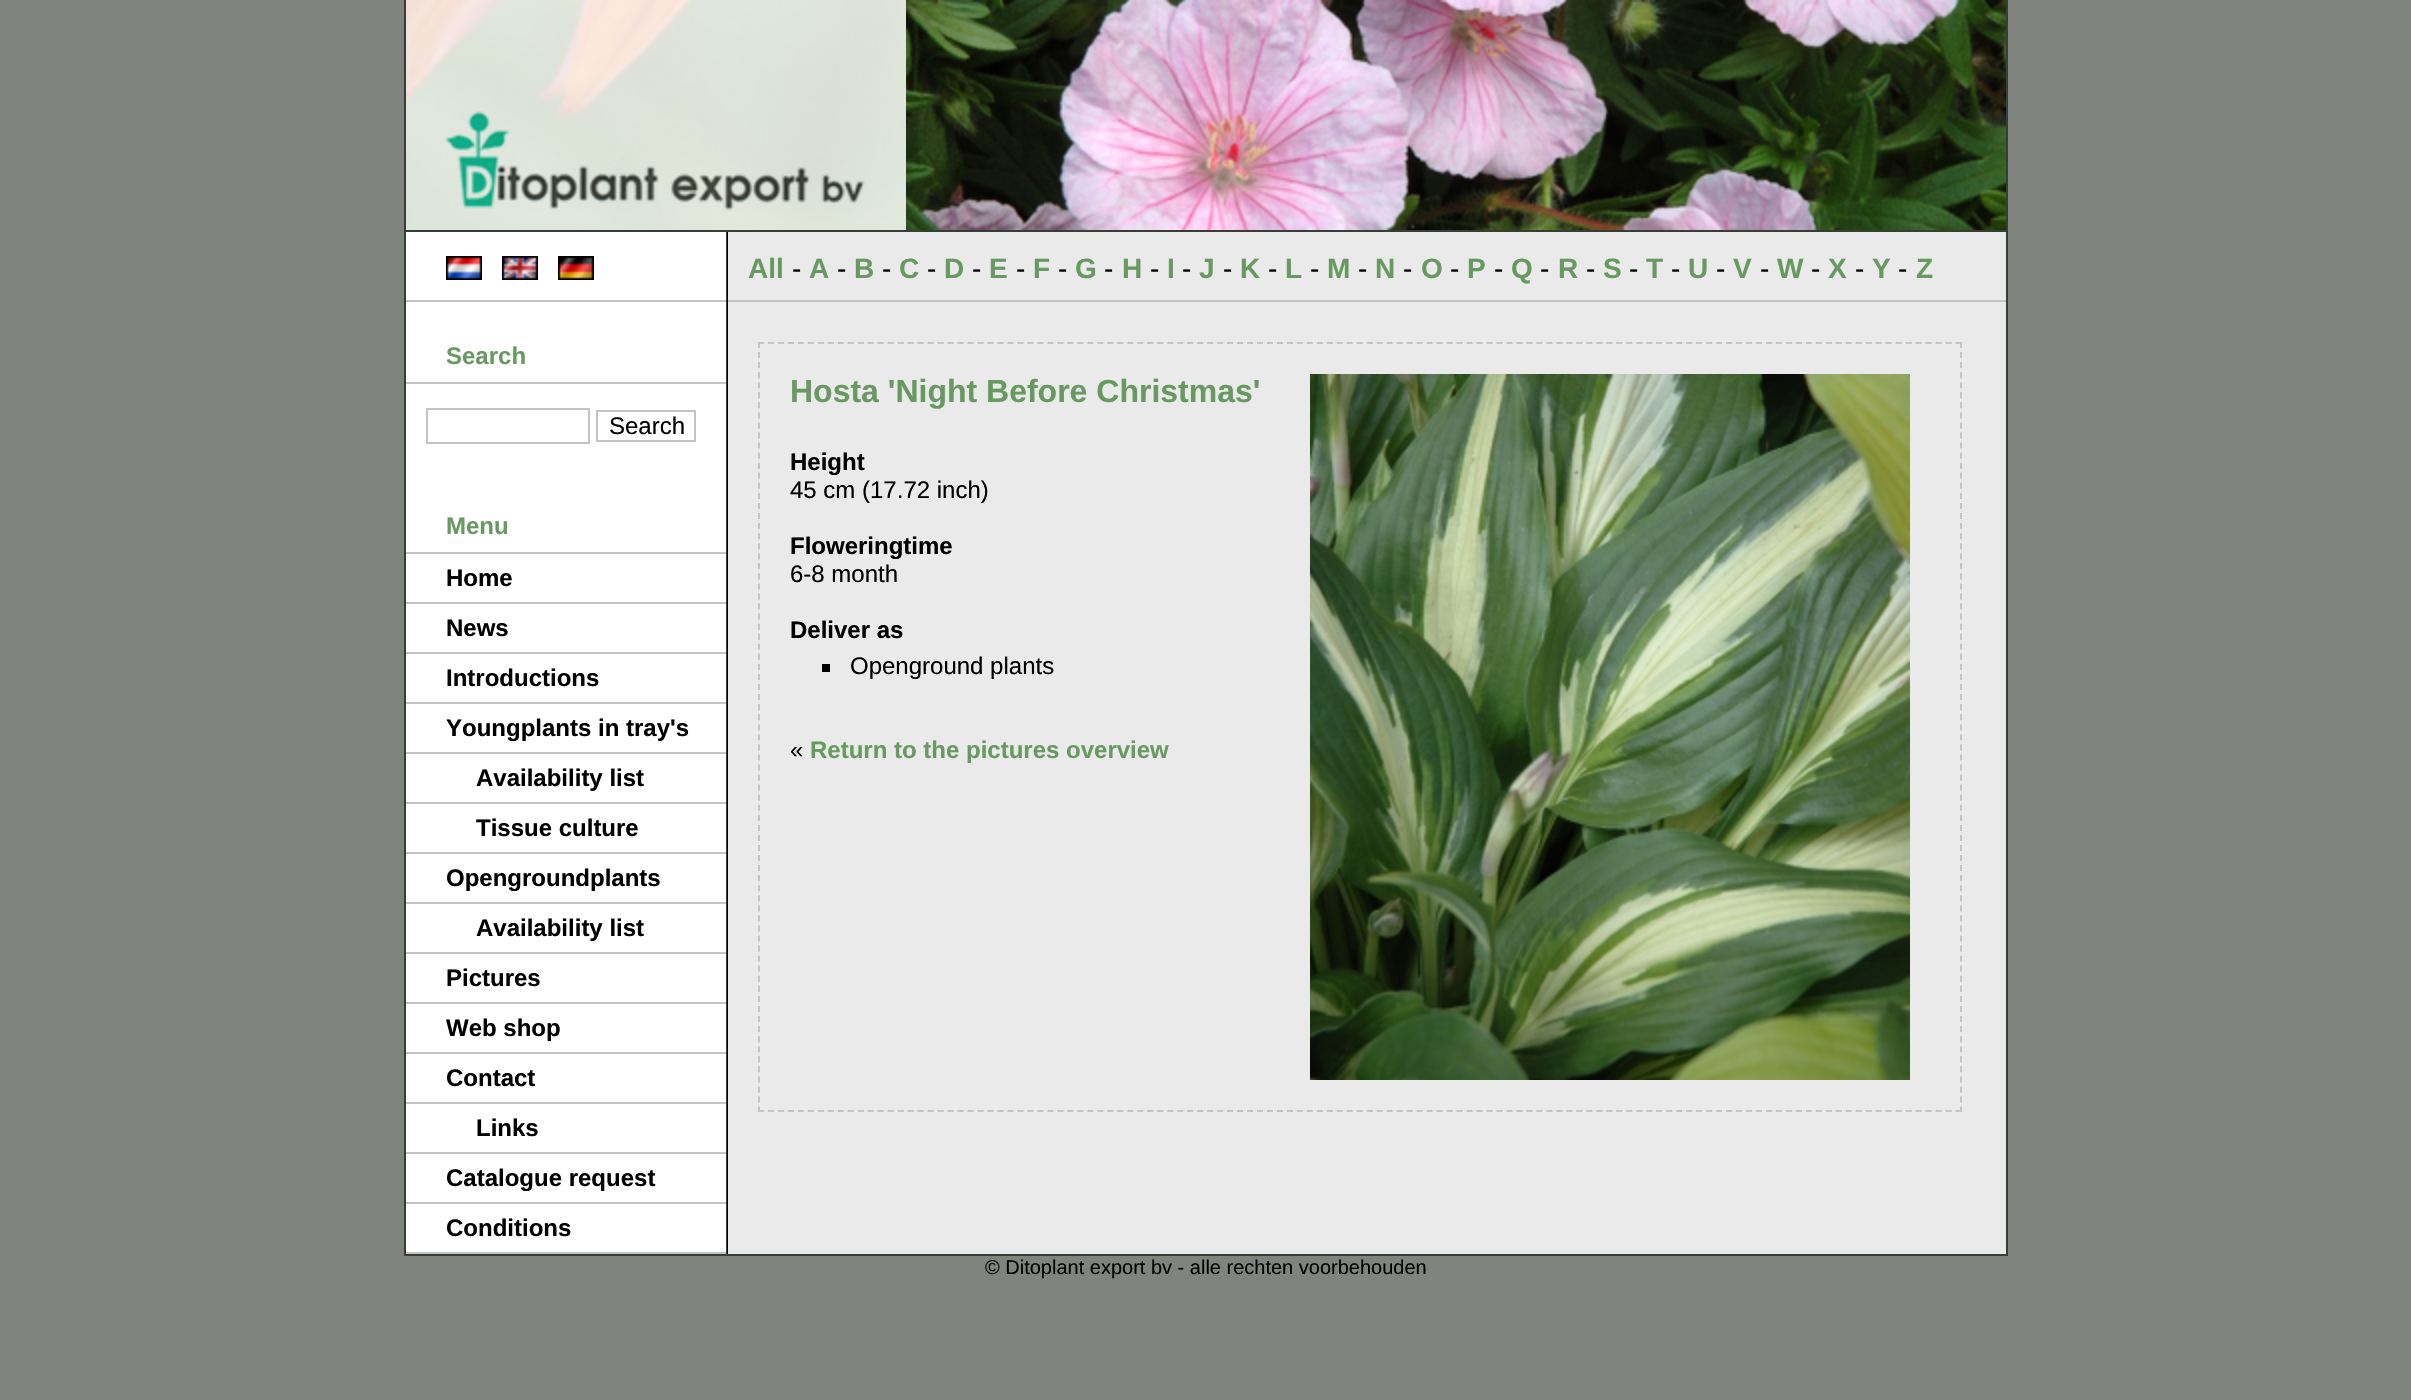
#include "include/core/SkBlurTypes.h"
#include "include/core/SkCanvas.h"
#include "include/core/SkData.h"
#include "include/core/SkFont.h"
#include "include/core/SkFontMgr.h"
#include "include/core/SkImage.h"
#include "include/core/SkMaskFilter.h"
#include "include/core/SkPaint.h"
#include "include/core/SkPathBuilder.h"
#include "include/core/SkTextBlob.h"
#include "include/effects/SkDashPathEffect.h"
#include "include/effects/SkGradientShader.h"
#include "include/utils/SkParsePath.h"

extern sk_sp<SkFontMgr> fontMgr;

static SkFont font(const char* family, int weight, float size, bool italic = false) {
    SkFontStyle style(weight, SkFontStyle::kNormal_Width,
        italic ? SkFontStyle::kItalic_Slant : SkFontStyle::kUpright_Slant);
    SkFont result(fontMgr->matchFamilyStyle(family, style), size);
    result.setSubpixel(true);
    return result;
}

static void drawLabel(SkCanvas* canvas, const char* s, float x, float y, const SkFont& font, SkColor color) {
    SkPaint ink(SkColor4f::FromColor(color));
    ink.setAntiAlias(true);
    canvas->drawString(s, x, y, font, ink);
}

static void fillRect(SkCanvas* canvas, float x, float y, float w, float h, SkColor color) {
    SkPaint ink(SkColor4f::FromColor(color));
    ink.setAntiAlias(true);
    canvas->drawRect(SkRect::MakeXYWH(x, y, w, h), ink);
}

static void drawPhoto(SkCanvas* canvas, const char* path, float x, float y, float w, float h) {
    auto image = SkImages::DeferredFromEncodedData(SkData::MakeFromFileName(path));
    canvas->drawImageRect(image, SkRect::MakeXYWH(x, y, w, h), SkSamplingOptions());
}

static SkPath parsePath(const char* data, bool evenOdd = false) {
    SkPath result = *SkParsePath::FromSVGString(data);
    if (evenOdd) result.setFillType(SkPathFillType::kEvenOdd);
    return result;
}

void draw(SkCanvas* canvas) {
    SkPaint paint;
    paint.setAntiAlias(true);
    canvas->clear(0xFF80837E);
    fillRect(canvas, 728, 232, 1278, 1022, 0xFFEAEAEA);
    drawPhoto(canvas, "assets/img1.png", 726, 232, 2, 1022);
    fillRect(canvas, 2006, 0, 2, 1256, 0xFF373E36);
    fillRect(canvas, 404, 1254, 1604, 2, 0xFF373E36);
    fillRect(canvas, 404, 0, 2, 1256, 0xFF373E36);
    drawPhoto(canvas, "assets/img2.png", 406, 0, 500, 230);
    fillRect(canvas, 406, 230, 1600, 2, 0xFF373E36);
    drawPhoto(canvas, "assets/img3.png", 906, 0, 1100, 230);
    fillRect(canvas, 406, 232, 320, 1020, 0xFFFFFFFF);
    fillRect(canvas, 406, 300, 320, 2, 0xFFC3C3C3);
    drawPhoto(canvas, "assets/img4.png", 446, 256, 36, 24);
    drawPhoto(canvas, "assets/img5.png", 502, 256, 36, 24);
    drawPhoto(canvas, "assets/img6.png", 558, 256, 36, 24);
    fillRect(canvas, 406, 382, 320, 2, 0xFFC3C3C3);
    SkFont font1 = font("Liberation Sans", 700, 24);
    drawLabel(canvas, "Search", 446, 364, font1, 0xFF679961);
    paint.setStroke(true);
    paint.setStrokeWidth(2);
    paint.setColor(0xFFC3C3C3);
    canvas->drawRect(SkRect::MakeXYWH(427, 409, 162, 34), paint);
    canvas->drawRect(SkRect::MakeXYWH(597, 411, 98, 30), paint);
    SkFont font2 = font("Liberation Sans", 400, 24);
    drawLabel(canvas, "Search", 609, 434, font2, 0xFF000000);
    drawLabel(canvas, "Menu", 446, 534, font1, 0xFF679961);
    fillRect(canvas, 406, 552, 320, 2, 0xFFC3C3C3);
    fillRect(canvas, 406, 602, 320, 2, 0xFFC3C3C3);
    drawLabel(canvas, "Home", 446, 586, font1, 0xFF000000);
    fillRect(canvas, 406, 652, 320, 2, 0xFFC3C3C3);
    drawLabel(canvas, "News", 446, 636, font1, 0xFF000000);
    fillRect(canvas, 406, 702, 320, 2, 0xFFC3C3C3);
    drawLabel(canvas, "Introductions", 446, 686, font1, 0xFF000000);
    fillRect(canvas, 406, 752, 320, 2, 0xFFC3C3C3);
    drawLabel(canvas, "Youngplants in tray's", 446, 736, font1, 0xFF000000);
    fillRect(canvas, 406, 802, 320, 2, 0xFFC3C3C3);
    drawLabel(canvas, "Availability list", 476, 786, font1, 0xFF000000);
    fillRect(canvas, 406, 852, 320, 2, 0xFFC3C3C3);
    drawLabel(canvas, "Tissue culture", 476, 836, font1, 0xFF000000);
    fillRect(canvas, 406, 902, 320, 2, 0xFFC3C3C3);
    drawLabel(canvas, "Opengroundplants", 446, 886, font1, 0xFF000000);
    fillRect(canvas, 406, 952, 320, 2, 0xFFC3C3C3);
    drawLabel(canvas, "Availability list", 476, 936, font1, 0xFF000000);
    fillRect(canvas, 406, 1002, 320, 2, 0xFFC3C3C3);
    drawLabel(canvas, "Pictures", 446, 986, font1, 0xFF000000);
    fillRect(canvas, 406, 1052, 320, 2, 0xFFC3C3C3);
    drawLabel(canvas, "Web shop", 446, 1036, font1, 0xFF000000);
    fillRect(canvas, 406, 1102, 320, 2, 0xFFC3C3C3);
    drawLabel(canvas, "Contact", 446, 1086, font1, 0xFF000000);
    fillRect(canvas, 406, 1152, 320, 2, 0xFFC3C3C3);
    drawLabel(canvas, "Links", 476, 1136, font1, 0xFF000000);
    fillRect(canvas, 406, 1202, 320, 2, 0xFFC3C3C3);
    drawLabel(canvas, "Catalogue request", 446, 1186, font1, 0xFF000000);
    fillRect(canvas, 406, 1252, 320, 2, 0xFFC3C3C3);
    drawLabel(canvas, "Conditions", 446, 1236, font1, 0xFF000000);
    fillRect(canvas, 728, 300, 1278, 2, 0xFFC3C3C3);
    SkFont font3 = font("Liberation Sans", 700, 28);
    drawLabel(canvas, "All", 748, 278, font3, 0xFF679961);
    SkFont font4 = font("Liberation Sans", 400, 28);
    drawLabel(canvas, "-", 792, 278, font4, 0xFF000000);
    drawLabel(canvas, "A", 809, 278, font3, 0xFF679961);
    drawLabel(canvas, "-", 837, 278, font4, 0xFF000000);
    drawLabel(canvas, "B", 854, 278, font3, 0xFF679961);
    drawLabel(canvas, "-", 882, 278, font4, 0xFF000000);
    drawLabel(canvas, "C", 899, 278, font3, 0xFF679961);
    drawLabel(canvas, "-", 927, 278, font4, 0xFF000000);
    drawLabel(canvas, "D", 944, 278, font3, 0xFF679961);
    drawLabel(canvas, "-", 972, 278, font4, 0xFF000000);
    drawLabel(canvas, "E", 989, 278, font3, 0xFF679961);
    drawLabel(canvas, "-", 1016, 278, font4, 0xFF000000);
    drawLabel(canvas, "F", 1033, 278, font3, 0xFF679961);
    drawLabel(canvas, "-", 1058, 278, font4, 0xFF000000);
    drawLabel(canvas, "G", 1075, 278, font3, 0xFF679961);
    drawLabel(canvas, "-", 1104, 278, font4, 0xFF000000);
    drawLabel(canvas, "H", 1122, 278, font3, 0xFF679961);
    drawLabel(canvas, "-", 1150, 278, font4, 0xFF000000);
    drawLabel(canvas, "I", 1167, 278, font3, 0xFF679961);
    drawLabel(canvas, "-", 1182, 278, font4, 0xFF000000);
    drawLabel(canvas, "J", 1199, 278, font3, 0xFF679961);
    drawLabel(canvas, "-", 1223, 278, font4, 0xFF000000);
    drawLabel(canvas, "K", 1240, 278, font3, 0xFF679961);
    drawLabel(canvas, "-", 1268, 278, font4, 0xFF000000);
    drawLabel(canvas, "L", 1285, 278, font3, 0xFF679961);
    drawLabel(canvas, "-", 1310, 278, font4, 0xFF000000);
    drawLabel(canvas, "M", 1327, 278, font3, 0xFF679961);
    drawLabel(canvas, "-", 1358, 278, font4, 0xFF000000);
    drawLabel(canvas, "N", 1375, 278, font3, 0xFF679961);
    drawLabel(canvas, "-", 1403, 278, font4, 0xFF000000);
    drawLabel(canvas, "O", 1421, 278, font3, 0xFF679961);
    drawLabel(canvas, "-", 1450, 278, font4, 0xFF000000);
    drawLabel(canvas, "P", 1467, 278, font3, 0xFF679961);
    drawLabel(canvas, "-", 1494, 278, font4, 0xFF000000);
    drawLabel(canvas, "Q", 1511, 278, font3, 0xFF679961);
    drawLabel(canvas, "-", 1540, 278, font4, 0xFF000000);
    drawLabel(canvas, "R", 1558, 278, font3, 0xFF679961);
    drawLabel(canvas, "-", 1586, 278, font4, 0xFF000000);
    drawLabel(canvas, "S", 1603, 278, font3, 0xFF679961);
    drawLabel(canvas, "-", 1629, 278, font4, 0xFF000000);
    drawLabel(canvas, "T", 1646, 278, font3, 0xFF679961);
    drawLabel(canvas, "-", 1671, 278, font4, 0xFF000000);
    drawLabel(canvas, "U", 1688, 278, font3, 0xFF679961);
    drawLabel(canvas, "-", 1716, 278, font4, 0xFF000000);
    drawLabel(canvas, "V", 1733, 278, font3, 0xFF679961);
    drawLabel(canvas, "-", 1760, 278, font4, 0xFF000000);
    drawLabel(canvas, "W", 1777, 278, font3, 0xFF679961);
    drawLabel(canvas, "-", 1811, 278, font4, 0xFF000000);
    drawLabel(canvas, "X", 1828, 278, font3, 0xFF679961);
    drawLabel(canvas, "-", 1855, 278, font4, 0xFF000000);
    drawLabel(canvas, "Y", 1872, 278, font3, 0xFF679961);
    drawLabel(canvas, "-", 1898, 278, font4, 0xFF000000);
    drawLabel(canvas, "Z", 1916, 278, font3, 0xFF679961);
    paint.setPathEffect(SkDashPathEffect::Make({{6, 3.98f}}, 0));
    canvas->drawPath(parsePath("M758 343H1962"), paint);
    paint.setPathEffect(nullptr);
    paint.setPathEffect(SkDashPathEffect::Make({{6, 4.06f}}, 0));
    canvas->drawPath(parsePath("M1961 342V1112"), paint);
    paint.setPathEffect(nullptr);
    paint.setPathEffect(SkDashPathEffect::Make({{6, 3.98f}}, 0));
    canvas->drawPath(parsePath("M758 1111H1962"), paint);
    paint.setPathEffect(nullptr);
    paint.setPathEffect(SkDashPathEffect::Make({{6, 4.06f}}, 0));
    canvas->drawPath(parsePath("M759 342V1112"), paint);
    paint.setPathEffect(nullptr);
    SkFont font5 = font("Liberation Sans", 700, 32);
    drawLabel(canvas, "Hosta 'Night Before Christmas'", 790, 402, font5, 0xFF679961);
    drawLabel(canvas, "Height", 790, 470, font1, 0xFF000000);
    drawLabel(canvas, "45 cm (17.72 inch)", 790, 498, font2, 0xFF000000);
    drawLabel(canvas, "Floweringtime", 790, 554, font1, 0xFF000000);
    drawLabel(canvas, "6-8 month", 790, 582, font2, 0xFF000000);
    drawLabel(canvas, "Deliver as", 790, 638, font1, 0xFF000000);
    fillRect(canvas, 822, 664, 8, 8, 0xFF000000);
    drawLabel(canvas, "Openground plants", 850, 674, font2, 0xFF000000);
    drawLabel(canvas, "«", 790, 758, font2, 0xFF000000);
    drawLabel(canvas, "Return to the pictures overview", 810, 758, font1, 0xFF679961);
    drawPhoto(canvas, "assets/img7.png", 1310, 374, 600, 706);
    SkFont font6 = font("Liberation Sans", 400, 20);
    drawLabel(canvas, "© Ditoplant export bv - alle rechten voorbehouden", 985, 1274, font6, 0xFF000000);
}
